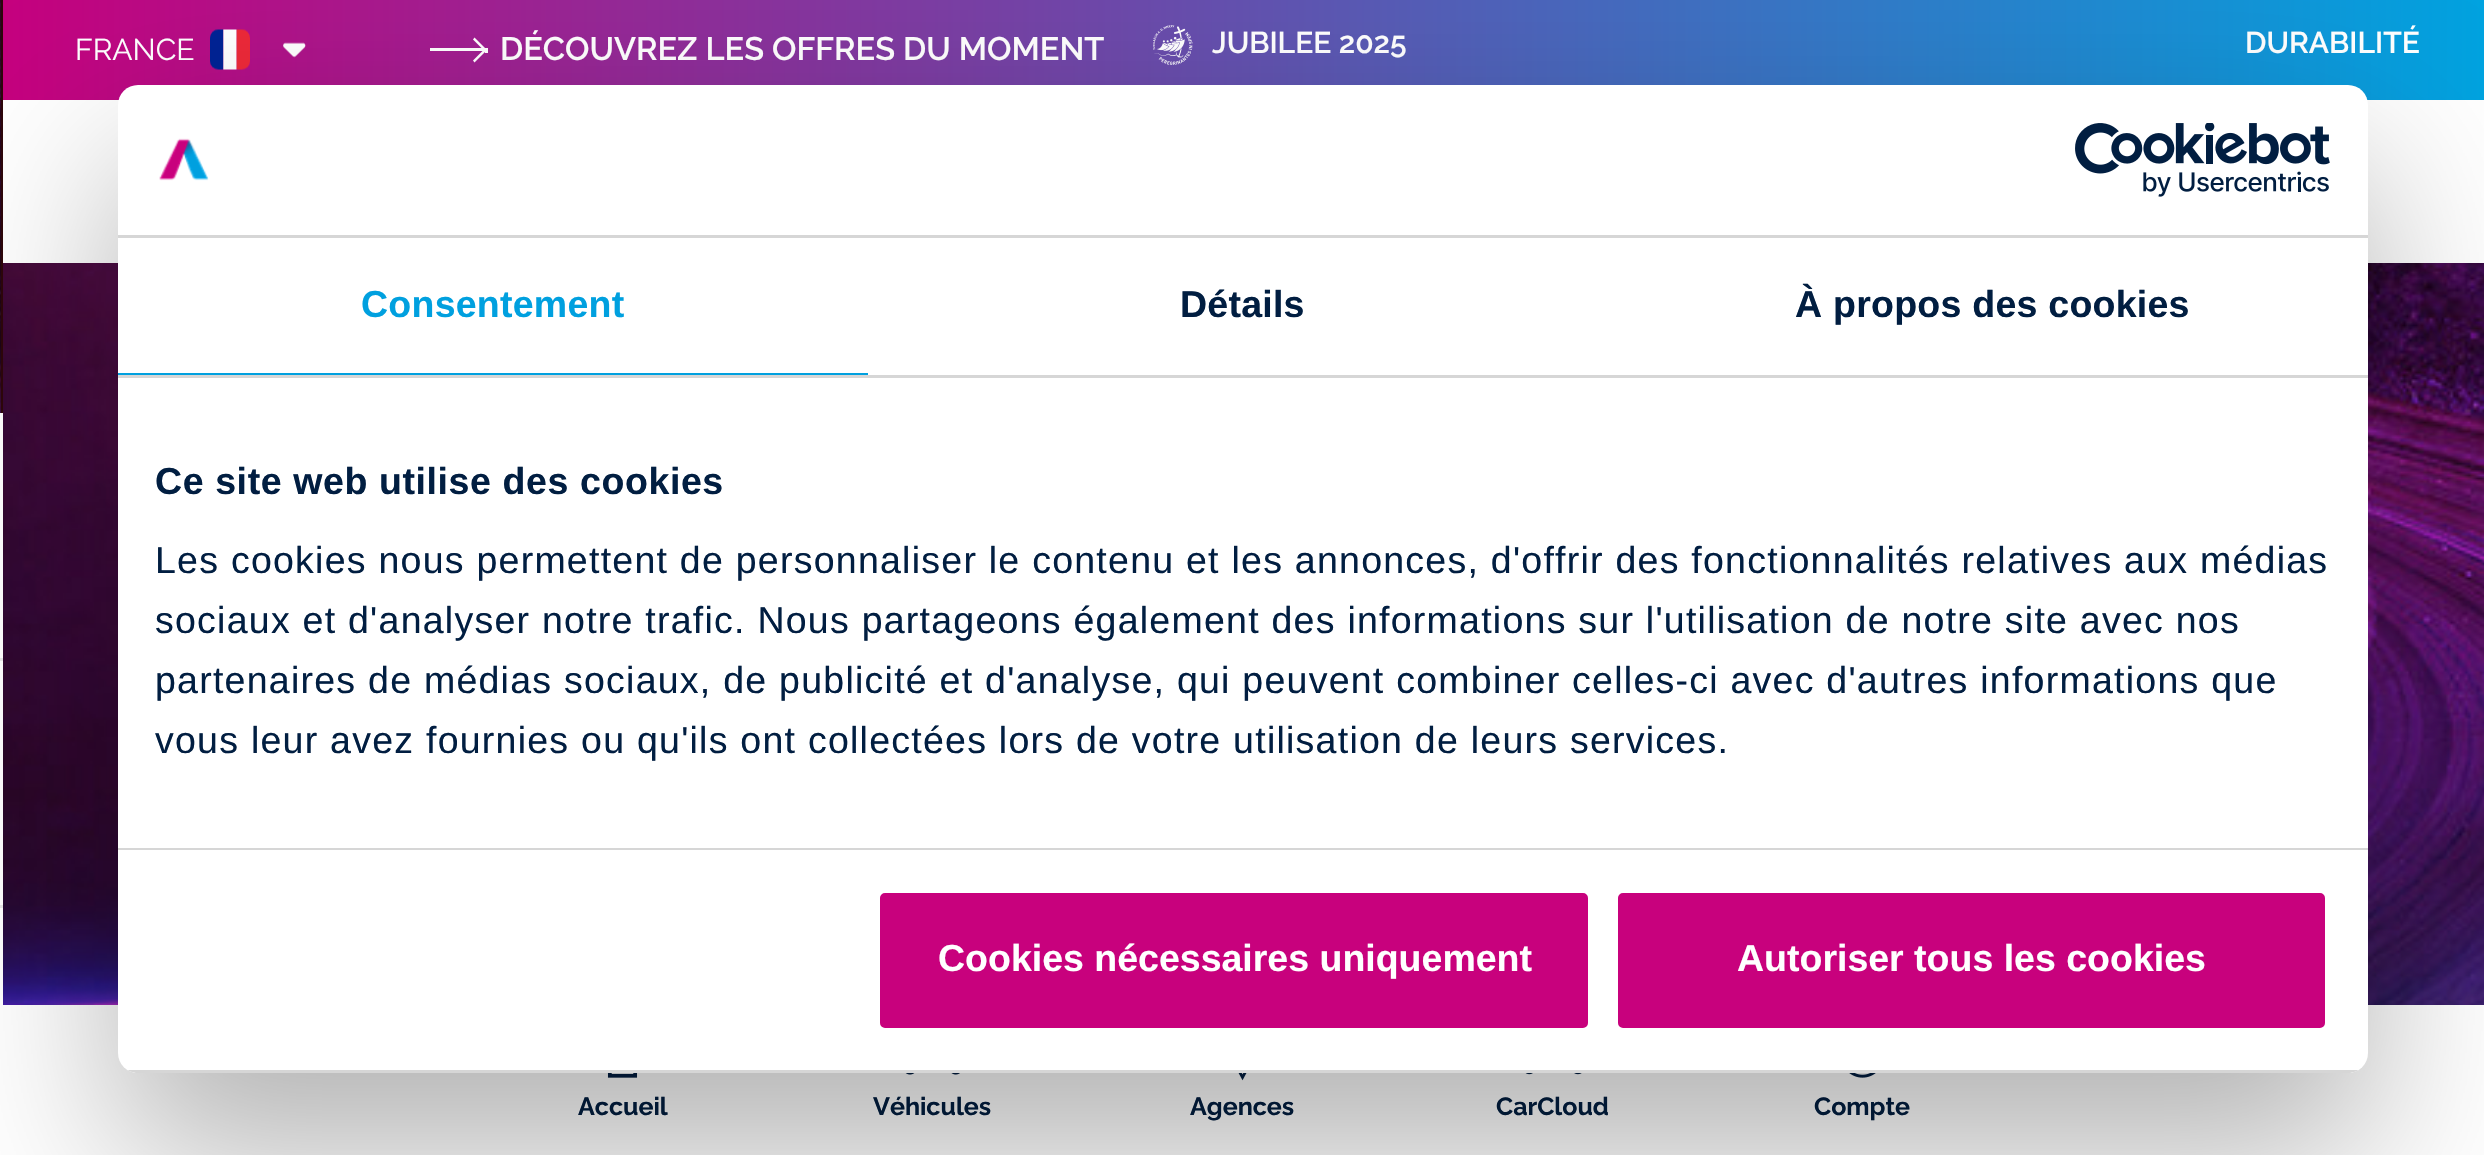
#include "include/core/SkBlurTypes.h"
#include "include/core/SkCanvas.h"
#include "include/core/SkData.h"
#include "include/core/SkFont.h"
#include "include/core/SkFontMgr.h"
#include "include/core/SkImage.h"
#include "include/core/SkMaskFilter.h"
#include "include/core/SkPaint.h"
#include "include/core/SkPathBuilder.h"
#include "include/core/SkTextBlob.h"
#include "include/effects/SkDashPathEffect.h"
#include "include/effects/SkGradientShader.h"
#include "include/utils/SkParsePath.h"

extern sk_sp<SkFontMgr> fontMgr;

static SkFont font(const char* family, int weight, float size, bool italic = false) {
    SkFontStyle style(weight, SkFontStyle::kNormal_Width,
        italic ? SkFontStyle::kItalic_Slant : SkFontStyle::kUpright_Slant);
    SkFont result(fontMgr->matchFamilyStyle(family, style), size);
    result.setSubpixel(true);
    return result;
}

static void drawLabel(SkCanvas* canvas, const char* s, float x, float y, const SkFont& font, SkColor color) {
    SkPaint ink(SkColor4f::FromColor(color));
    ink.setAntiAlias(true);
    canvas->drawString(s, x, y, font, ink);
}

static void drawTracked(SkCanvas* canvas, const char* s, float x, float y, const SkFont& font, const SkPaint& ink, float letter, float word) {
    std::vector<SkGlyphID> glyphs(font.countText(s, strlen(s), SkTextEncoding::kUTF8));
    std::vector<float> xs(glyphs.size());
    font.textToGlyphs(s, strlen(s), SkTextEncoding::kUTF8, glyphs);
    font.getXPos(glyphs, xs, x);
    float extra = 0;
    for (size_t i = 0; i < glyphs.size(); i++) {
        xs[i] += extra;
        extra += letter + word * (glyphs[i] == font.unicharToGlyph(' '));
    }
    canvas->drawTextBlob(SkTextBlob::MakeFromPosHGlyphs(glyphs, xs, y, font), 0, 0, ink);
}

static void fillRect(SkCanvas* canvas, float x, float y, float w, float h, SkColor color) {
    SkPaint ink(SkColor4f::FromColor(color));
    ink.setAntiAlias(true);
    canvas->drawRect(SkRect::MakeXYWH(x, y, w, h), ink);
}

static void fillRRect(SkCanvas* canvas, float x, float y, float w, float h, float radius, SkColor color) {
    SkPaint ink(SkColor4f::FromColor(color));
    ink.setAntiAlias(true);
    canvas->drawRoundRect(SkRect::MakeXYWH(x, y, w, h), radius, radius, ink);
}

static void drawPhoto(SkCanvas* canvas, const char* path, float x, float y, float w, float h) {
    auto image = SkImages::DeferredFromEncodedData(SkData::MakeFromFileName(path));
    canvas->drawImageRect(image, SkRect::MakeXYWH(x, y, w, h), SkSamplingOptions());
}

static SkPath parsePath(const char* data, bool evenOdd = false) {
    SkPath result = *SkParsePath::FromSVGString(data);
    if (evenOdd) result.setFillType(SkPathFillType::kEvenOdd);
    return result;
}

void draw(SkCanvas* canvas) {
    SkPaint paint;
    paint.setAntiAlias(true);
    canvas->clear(0xFFFFFFFF);
    fillRect(canvas, 0, 0, 3, 413, 0xFF2D060A);
    drawPhoto(canvas, "assets/img1.png", 0, 0, 1, 413);
    fillRect(canvas, 0, 658, 3, 3, 0xFFE8E8E8);
    fillRect(canvas, 0, 905, 3, 3, 0xFFE8E8E8);
    {
        const SkColor colors[] = {0xFFC6007E, 0xFF00A3E0};
        const float stops[] = {0, 1};
        const SkPoint ends[] = {{0, 49}, {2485, 51}};
        paint.setShader(SkGradientShader::MakeLinear(ends, colors, stops, 2, SkTileMode::kClamp));
        paint.setAlpha(255);
    }
    canvas->drawRect(SkRect::MakeXYWH(3, 0, 2481, 100), paint);
    SkFont font1 = font("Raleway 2", 100, 30);
    drawLabel(canvas, "FRANCE", 75, 60, font1, 0xFFFFFFFF);
    drawPhoto(canvas, "assets/img2.png", 210, 29, 40, 41);
    drawPhoto(canvas, "assets/img3.png", 283, 42, 23, 16);
    fillRect(canvas, 430, 48, 58, 3, 0xFFFFFFFF);
    fillRect(canvas, 485, 48, 3, 5, 0xFFFFFFFF);
    paint.setShader(nullptr);
    paint.setColor(0xFFFFFFFF);
    canvas->drawPath(parsePath("M474.5 37.5L487 50L485.5 52L473 39.5Z"), paint);
    canvas->drawPath(parsePath("M485.5 48L487 50L474.5 62.5L473 60.5Z"), paint);
    SkFont font2 = font("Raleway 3", 100, 32.5f);
    drawLabel(canvas, "DÉCOUVREZ LES OFFRES DU MOMENT", 500, 60, font2, 0xFFFFFFFF);
    drawPhoto(canvas, "assets/img4.png", 1153, 25, 40, 40);
    SkFont font3 = font("Raleway 3", 100, 30);
    drawLabel(canvas, "JUBILEE 2025", 1212, 53, font3, 0xFFFFFFFF);
    drawLabel(canvas, "DURABILITÉ", 2245, 53, font3, 0xFFFFFFFF);
    drawPhoto(canvas, "assets/img5.png", 3, 263, 2481, 742);
    drawPhoto(canvas, "assets/img6.png", 607, 1073, 31, 5);
    SkFont font4 = font("Raleway", 100, 25);
    drawLabel(canvas, "Accueil", 578, 1115, font4, 0xFF011E41);
    drawPhoto(canvas, "assets/img7.png", 905, 1073, 55, 2);
    drawLabel(canvas, "Véhicules", 873, 1115, font4, 0xFF011E41);
    drawPhoto(canvas, "assets/img8.png", 1238, 1073, 9, 8);
    drawLabel(canvas, "Agences", 1190, 1115, font4, 0xFF011E41);
    drawPhoto(canvas, "assets/img9.png", 1525, 1073, 57, 2);
    drawLabel(canvas, "CarCloud", 1496, 1115, font4, 0xFF011E41);
    drawPhoto(canvas, "assets/img10.png", 1849, 1073, 27, 5);
    drawLabel(canvas, "Compte", 1814, 1115, font4, 0xFF011E41);
    paint.setColor(0x4D000000);
    paint.setMaskFilter(SkMaskFilter::MakeBlur(kNormal_SkBlurStyle, 85));
    canvas->drawRoundRect(SkRect::MakeXYWH(118, 165, 2250, 988), 20, 20, paint);
    paint.setMaskFilter(nullptr);
    fillRRect(canvas, 118, 85, 2250, 988, 20, 0xFFFFFFFF);
    fillRect(canvas, 118, 235, 2250, 3, 0xFFD6D6D6);
    drawPhoto(canvas, "assets/img11.png", 159, 138, 50, 43);
    drawPhoto(canvas, "assets/img12.png", 2075, 123, 255, 74);
    fillRect(canvas, 118, 375, 2250, 3, 0xFFD6D6D6);
    fillRect(canvas, 118, 373, 750, 2, 0xFF00A0DF);
    SkFont font5 = font("Liberation Sans", 700, 37.5f);
    paint.setColor(0xFF00A0DF);
    drawTracked(canvas, "Consentement", 361, 317, font5, paint, 0.25f, 0);
    paint.setColor(0xFF011E41);
    drawTracked(canvas, "Détails", 1180, 317, font5, paint, 0.25f, 0);
    drawTracked(canvas, "À propos des cookies", 1795, 317, font5, paint, 0.25f, 0);
    fillRect(canvas, 118, 848, 2250, 2, 0xFFD6D6D6);
    drawTracked(canvas, "Ce site web utilise des cookies", 155, 494, font5, paint, 0.6f, 0);
    SkFont font6 = font("Liberation Sans", 400, 37.5f);
    drawTracked(canvas, "Les cookies nous permettent de personnaliser le contenu et les annonces, d'offrir des fonctionnalités relatives aux médias", 155, 573, font6, paint, 1.25f, 0);
    drawTracked(canvas, "sociaux et d'analyser notre trafic. Nous partageons également des informations sur l'utilisation de notre site avec nos", 155, 633, font6, paint, 1.25f, 0);
    drawTracked(canvas, "partenaires de médias sociaux, de publicité et d'analyse, qui peuvent combiner celles-ci avec d'autres informations que", 155, 693, font6, paint, 1.25f, 0);
    drawTracked(canvas, "vous leur avez fournies ou qu'ils ont collectées lors de votre utilisation de leurs services.", 155, 753, font6, paint, 1.25f, 0);
    canvas->save();
    canvas->clipPath(parsePath("M138 85H2348C2359 85 2368 94 2368 105V1053C2368 1064 2359 1073 2348 1073H138C127 1073 118 1064 118 1053V105C118 94 127 85 138 85Z"), true);
    fillRect(canvas, 127, 1070, 2232, 3, 0xFFD6D6D6);
    canvas->restore();
    paint.setColor(0xFFC8017D);
    canvas->drawRoundRect(SkRect::MakeXYWH(877.5f, 890.5f, 713, 140), 7.5f, 7.5f, paint);
    paint.setStroke(true);
    paint.setStrokeWidth(5);
    paint.setColor(0xFFFFFFFF);
    canvas->drawRoundRect(SkRect::MakeXYWH(877.5f, 890.5f, 713, 140), 7.5f, 7.5f, paint);
    drawLabel(canvas, "Cookies nécessaires uniquement", 938, 971, font5, 0xFFFFFFFF);
    paint.setStroke(false);
    paint.setColor(0xFFC8017D);
    canvas->drawRoundRect(SkRect::MakeXYWH(1615.5f, 890.5f, 712, 140), 7.5f, 7.5f, paint);
    paint.setStroke(true);
    paint.setColor(0xFFFFFFFF);
    canvas->drawRoundRect(SkRect::MakeXYWH(1615.5f, 890.5f, 712, 140), 7.5f, 7.5f, paint);
    drawLabel(canvas, "Autoriser tous les cookies", 1737, 971, font5, 0xFFFFFFFF);
}
